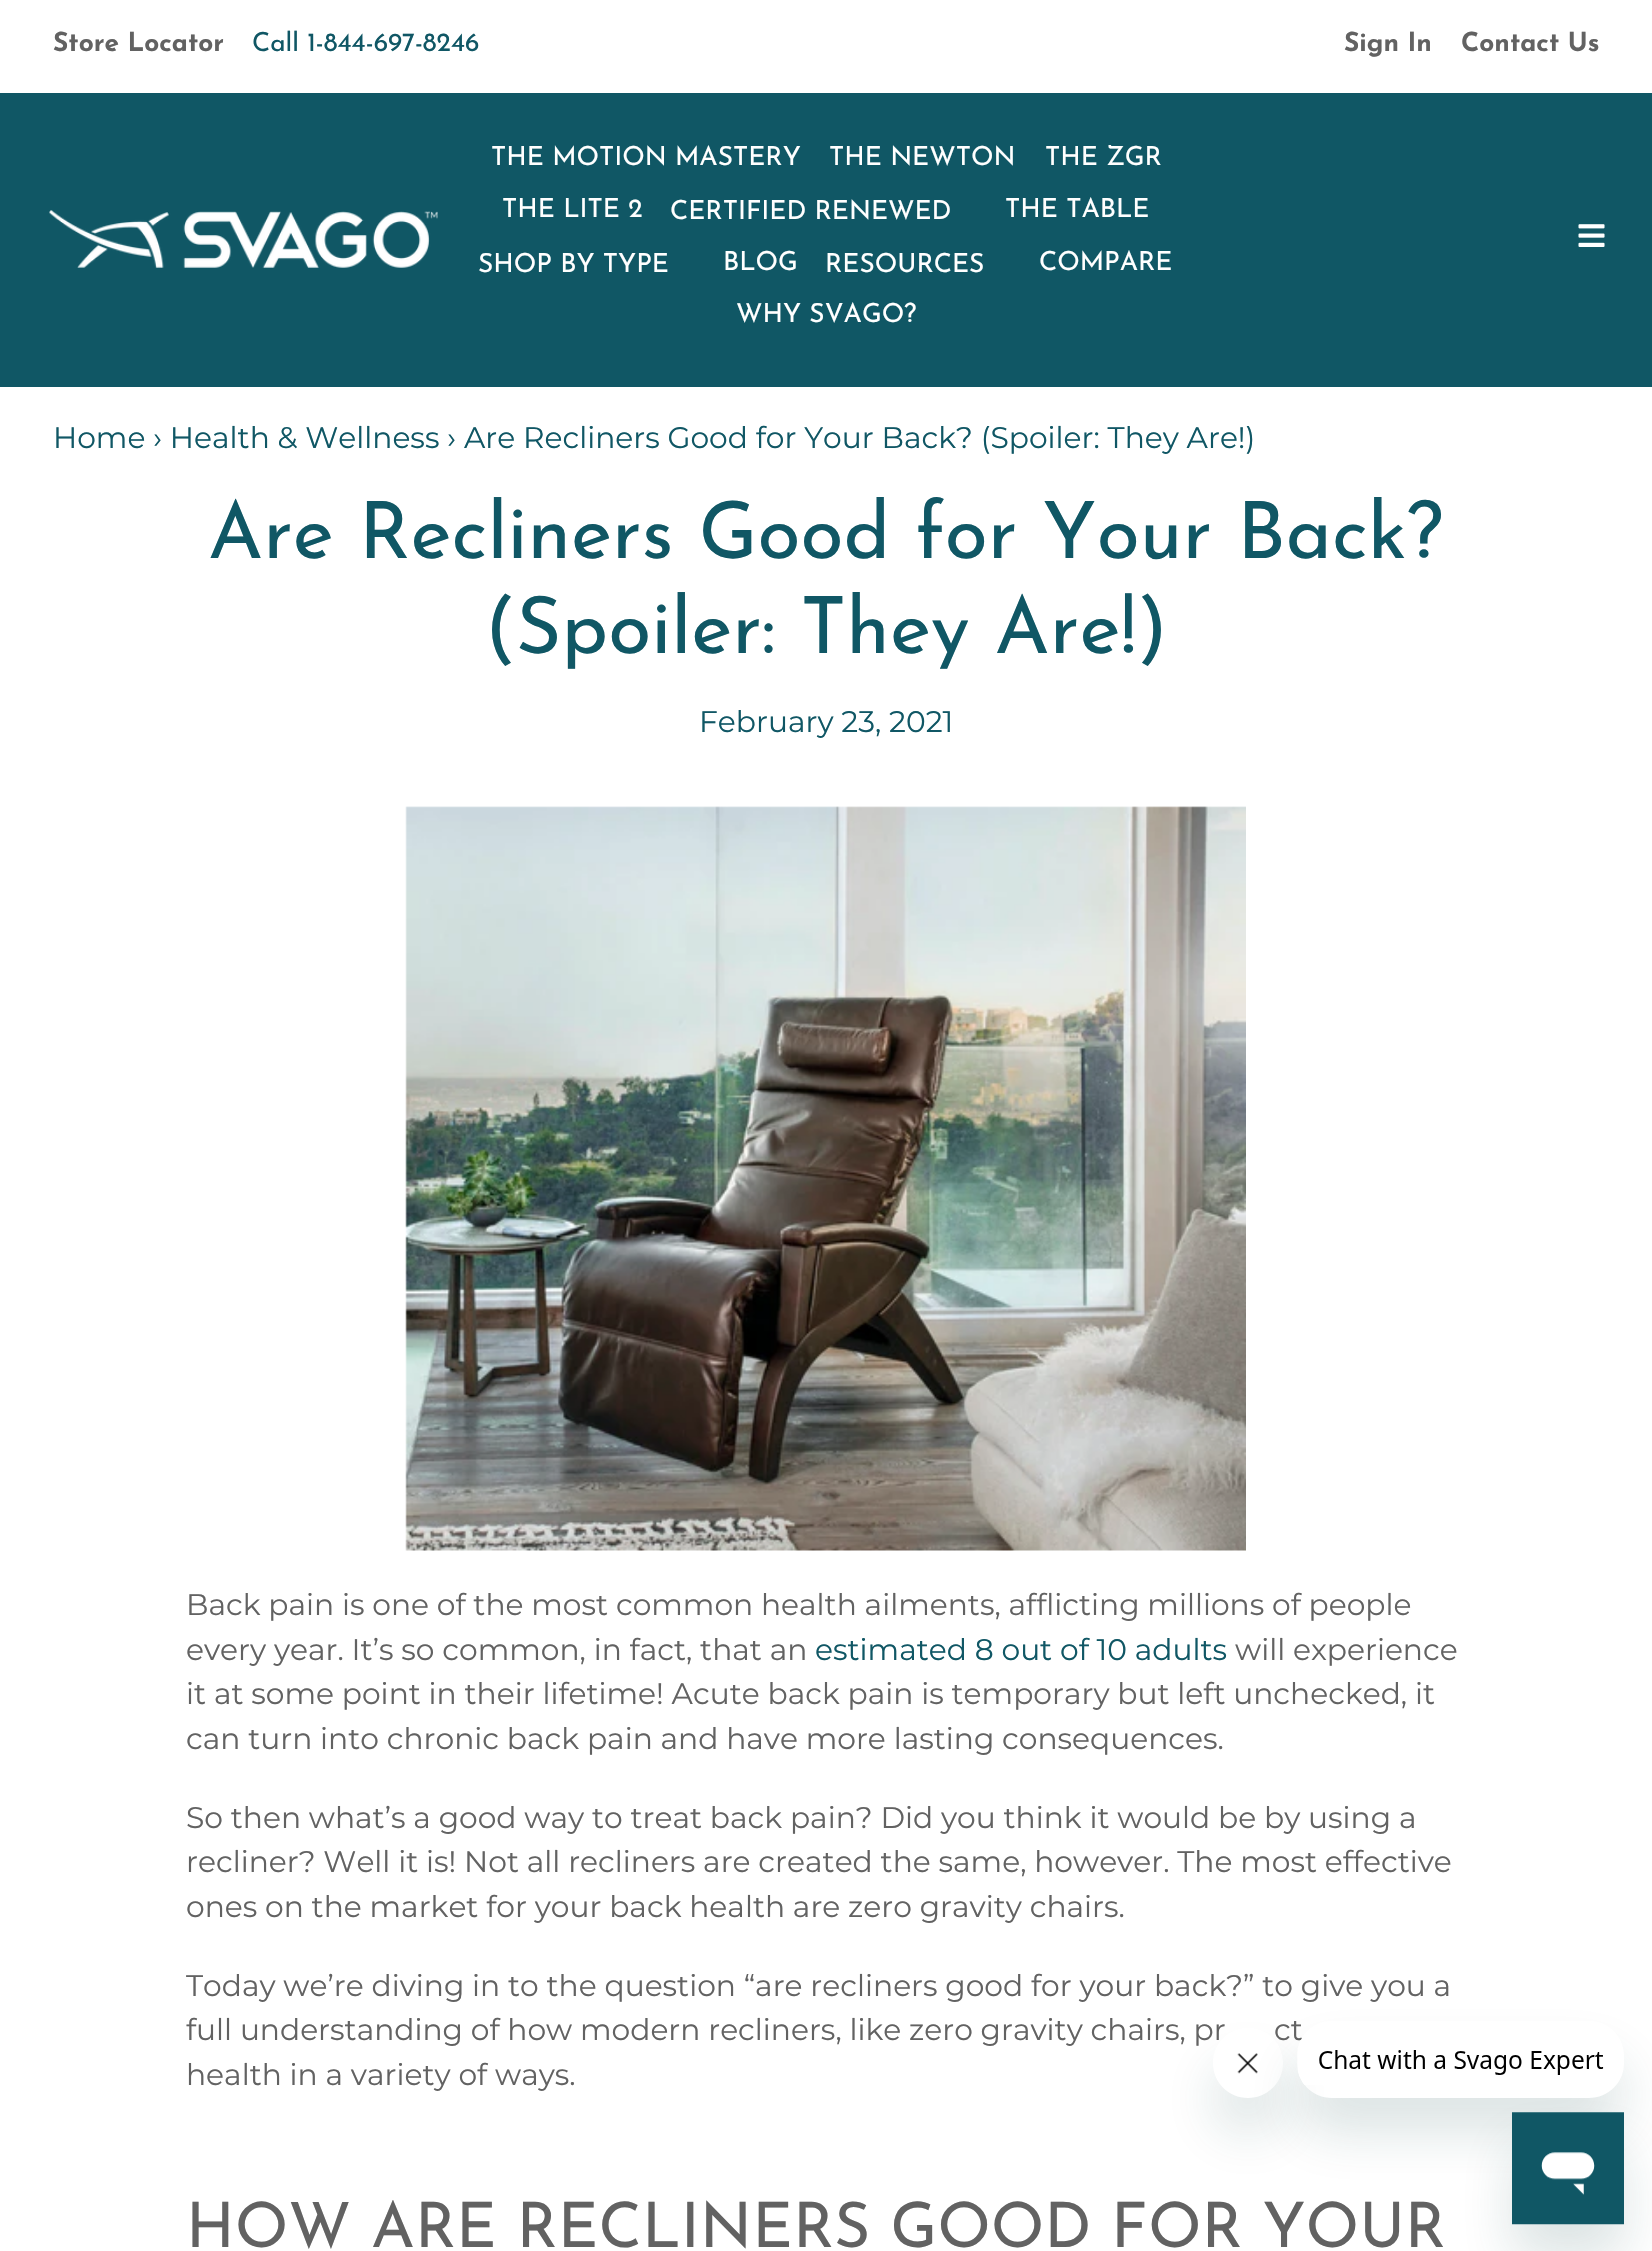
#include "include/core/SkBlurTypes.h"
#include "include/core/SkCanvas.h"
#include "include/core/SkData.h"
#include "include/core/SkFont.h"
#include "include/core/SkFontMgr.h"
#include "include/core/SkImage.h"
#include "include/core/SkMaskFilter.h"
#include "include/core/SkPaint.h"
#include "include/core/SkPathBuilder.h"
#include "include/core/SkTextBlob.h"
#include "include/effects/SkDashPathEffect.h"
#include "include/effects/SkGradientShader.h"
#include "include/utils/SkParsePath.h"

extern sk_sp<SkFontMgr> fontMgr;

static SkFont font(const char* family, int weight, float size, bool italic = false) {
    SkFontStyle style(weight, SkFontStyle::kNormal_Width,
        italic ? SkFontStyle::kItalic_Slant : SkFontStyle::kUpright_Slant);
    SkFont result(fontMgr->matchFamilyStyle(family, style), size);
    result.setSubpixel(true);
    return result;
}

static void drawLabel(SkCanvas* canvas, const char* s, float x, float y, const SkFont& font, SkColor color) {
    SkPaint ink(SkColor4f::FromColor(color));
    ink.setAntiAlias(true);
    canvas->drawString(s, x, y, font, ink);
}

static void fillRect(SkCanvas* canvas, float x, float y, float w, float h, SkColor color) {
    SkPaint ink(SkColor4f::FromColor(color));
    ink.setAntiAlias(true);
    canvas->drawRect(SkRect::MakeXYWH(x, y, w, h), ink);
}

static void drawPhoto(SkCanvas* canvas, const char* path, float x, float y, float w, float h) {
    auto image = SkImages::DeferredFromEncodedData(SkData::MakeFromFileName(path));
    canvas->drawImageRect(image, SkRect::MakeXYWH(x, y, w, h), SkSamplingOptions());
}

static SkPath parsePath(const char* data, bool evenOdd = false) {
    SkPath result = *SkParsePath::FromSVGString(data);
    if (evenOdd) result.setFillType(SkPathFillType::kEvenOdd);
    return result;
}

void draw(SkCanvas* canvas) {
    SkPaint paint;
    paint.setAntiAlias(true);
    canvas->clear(0xFFFFFFFF);
    SkFont font1 = font("Josefin Sans", 700, 26.25f);
    drawLabel(canvas, "Store Locator", 53, 51, font1, 0xFF626262);
    SkFont font2 = font("Josefin Sans", 400, 26.25f);
    drawLabel(canvas, "Call 1-844-697-8246", 252, 51, font2, 0xFF105765);
    drawLabel(canvas, "Sign In", 1344, 51, font1, 0xFF626262);
    drawLabel(canvas, "Contact Us", 1461, 51, font1, 0xFF626262);
    fillRect(canvas, 0, 93, 1652, 294, 0xFF105765);
    drawPhoto(canvas, "assets/img1.png", 49, 210, 389, 58);
    drawLabel(canvas, "THE MOTION MASTERY", 491, 165, font2, 0xFFFFFFFF);
    drawLabel(canvas, "THE NEWTON", 829, 165, font2, 0xFFFFFFFF);
    drawLabel(canvas, "THE ZGR", 1045, 165, font2, 0xFFFFFFFF);
    drawLabel(canvas, "THE LITE 2", 502, 217, font2, 0xFFFFFFFF);
    drawLabel(canvas, "CERTIFIED RENEWED", 670, 219, font2, 0xFFFFFFFF);
    drawLabel(canvas, "THE TABLE", 1005, 217, font2, 0xFFFFFFFF);
    drawLabel(canvas, "SHOP BY TYPE", 478, 272, font2, 0xFFFFFFFF);
    drawLabel(canvas, "BLOG", 723, 270, font2, 0xFFFFFFFF);
    drawLabel(canvas, "RESOURCES", 825, 272, font2, 0xFFFFFFFF);
    drawLabel(canvas, "COMPARE", 1039, 270, font2, 0xFFFFFFFF);
    drawLabel(canvas, "WHY SVAGO?", 736, 322, font2, 0xFFFFFFFF);
    drawPhoto(canvas, "assets/img2.png", 1578, 224, 27, 23);
    SkFont font3 = font("Montserrat", 400, 29.75f);
    drawLabel(canvas, "Home › Health & Wellness › Are Recliners Good for Your Back? (Spoiler: They Are!)", 53, 448, font3, 0xFF105765);
    SkFont font4 = font("Josefin Sans", 400, 78.75f);
    drawLabel(canvas, "Are Recliners Good for Your Back?", 208, 558, font4, 0xFF105765);
    drawLabel(canvas, "(Spoiler: They Are!)", 484, 653, font4, 0xFF105765);
    drawLabel(canvas, "February 23, 2021", 699, 732, font3, 0xFF105765);
    drawPhoto(canvas, "assets/img3.png", 405, 806, 841, 745);
    drawLabel(canvas, "Back pain is one of the most common health ailments, afflicting millions of people", 186, 1615, font3, 0xFF626262);
    drawLabel(canvas, "every year. It’s so common, in fact, that an", 186, 1660, font3, 0xFF626262);
    drawLabel(canvas, "estimated 8 out of 10 adults", 815, 1660, font3, 0xFF105765);
    drawLabel(canvas, "will experience", 1235, 1660, font3, 0xFF626262);
    drawLabel(canvas, "it at some point in their lifetime! Acute back pain is temporary but left unchecked, it", 186, 1704, font3, 0xFF626262);
    drawLabel(canvas, "can turn into chronic back pain and have more lasting consequences.", 186, 1749, font3, 0xFF626262);
    drawLabel(canvas, "So then what’s a good way to treat back pain? Did you think it would be by using a", 186, 1828, font3, 0xFF626262);
    drawLabel(canvas, "recliner? Well it is! Not all recliners are created the same, however. The most effective", 186, 1872, font3, 0xFF626262);
    drawLabel(canvas, "ones on the market for your back health are zero gravity chairs.", 186, 1917, font3, 0xFF626262);
    drawLabel(canvas, "Today we’re diving in to the question “are recliners good for your back?” to give you a", 186, 1996, font3, 0xFF626262);
    drawLabel(canvas, "full understanding of how modern recliners, like zero gravity chairs, pr", 186, 2040, font3, 0xFF626262);
    drawLabel(canvas, "ct", 1274, 2040, font3, 0xFF626262);
    drawLabel(canvas, "health in a variety of ways.", 186, 2085, font3, 0xFF626262);
    SkFont font5 = font("Josefin Sans", 400, 62.5f);
    drawLabel(canvas, "HOW ARE RECLINERS GOOD FOR YOUR", 186, 2247, font5, 0xFF626262);
    canvas->save();
    canvas->clipPath(parsePath("M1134 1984H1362V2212H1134ZM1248 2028C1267.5 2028 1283 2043.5 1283 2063C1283 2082.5 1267.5 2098 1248 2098C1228.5 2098 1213 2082.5 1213 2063C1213 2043.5 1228.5 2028 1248 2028Z", true), true);
    paint.setColor(0x2617494D);
    paint.setMaskFilter(SkMaskFilter::MakeBlur(kNormal_SkBlurStyle, 26));
    canvas->drawRoundRect(SkRect::MakeXYWH(1213, 2063, 70, 70), 35, 35, paint);
    paint.setMaskFilter(nullptr);
    canvas->restore();
    drawPhoto(canvas, "assets/img5.png", 1227, 2028, 45, 46);
    canvas->save();
    canvas->clipPath(parsePath("M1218 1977H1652V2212H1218ZM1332 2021H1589C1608.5 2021 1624 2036.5 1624 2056V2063C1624 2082.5 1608.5 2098 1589 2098H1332C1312.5 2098 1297 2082.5 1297 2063V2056C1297 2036.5 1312.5 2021 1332 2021Z", true), true);
    paint.setMaskFilter(SkMaskFilter::MakeBlur(kNormal_SkBlurStyle, 26));
    canvas->drawRoundRect(SkRect::MakeXYWH(1297, 2056, 327, 77), 35, 35, paint);
    paint.setMaskFilter(nullptr);
    canvas->restore();
    drawPhoto(canvas, "assets/img4.png", 1298, 2021, 306, 64);
    paint.setMaskFilter(SkMaskFilter::MakeBlur(kNormal_SkBlurStyle, 26));
    canvas->drawRect(SkRect::MakeXYWH(1512, 2147, 112, 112), paint);
    paint.setMaskFilter(nullptr);
    drawPhoto(canvas, "assets/img6.png", 1512, 2112, 112, 113);
}
